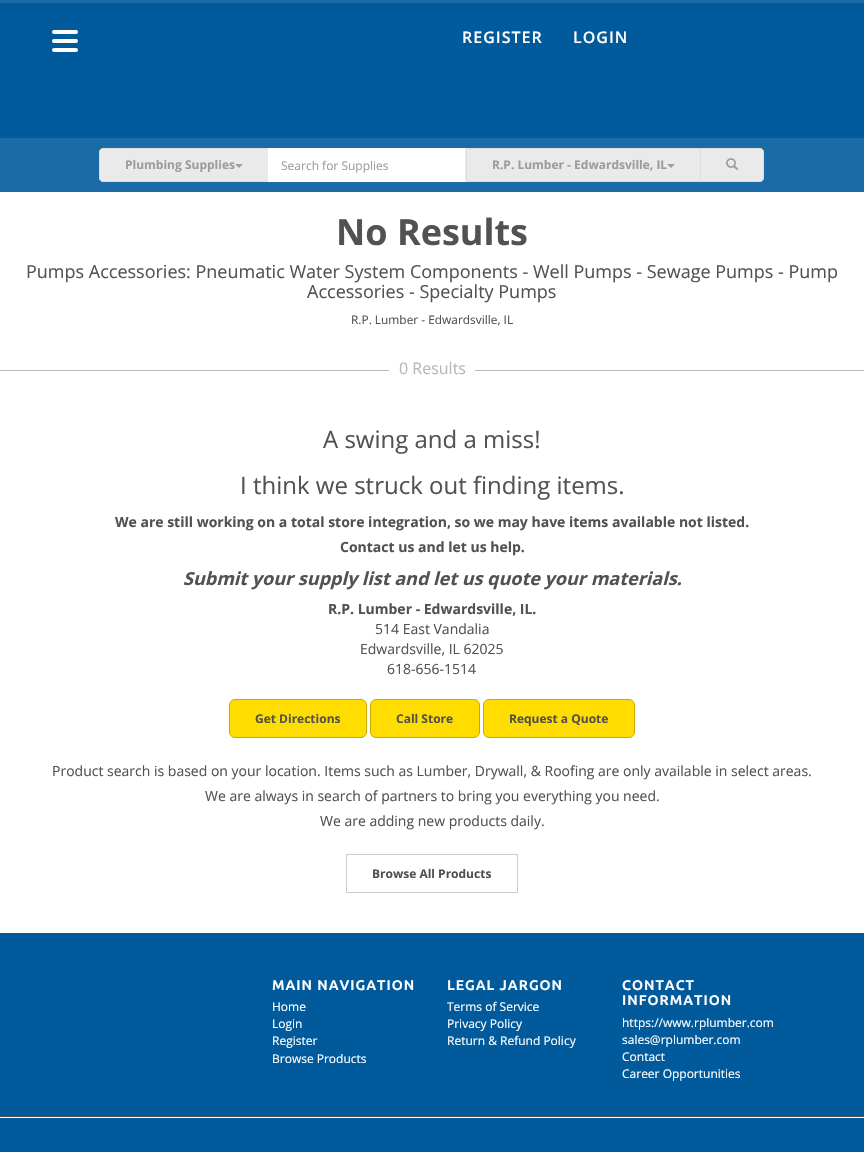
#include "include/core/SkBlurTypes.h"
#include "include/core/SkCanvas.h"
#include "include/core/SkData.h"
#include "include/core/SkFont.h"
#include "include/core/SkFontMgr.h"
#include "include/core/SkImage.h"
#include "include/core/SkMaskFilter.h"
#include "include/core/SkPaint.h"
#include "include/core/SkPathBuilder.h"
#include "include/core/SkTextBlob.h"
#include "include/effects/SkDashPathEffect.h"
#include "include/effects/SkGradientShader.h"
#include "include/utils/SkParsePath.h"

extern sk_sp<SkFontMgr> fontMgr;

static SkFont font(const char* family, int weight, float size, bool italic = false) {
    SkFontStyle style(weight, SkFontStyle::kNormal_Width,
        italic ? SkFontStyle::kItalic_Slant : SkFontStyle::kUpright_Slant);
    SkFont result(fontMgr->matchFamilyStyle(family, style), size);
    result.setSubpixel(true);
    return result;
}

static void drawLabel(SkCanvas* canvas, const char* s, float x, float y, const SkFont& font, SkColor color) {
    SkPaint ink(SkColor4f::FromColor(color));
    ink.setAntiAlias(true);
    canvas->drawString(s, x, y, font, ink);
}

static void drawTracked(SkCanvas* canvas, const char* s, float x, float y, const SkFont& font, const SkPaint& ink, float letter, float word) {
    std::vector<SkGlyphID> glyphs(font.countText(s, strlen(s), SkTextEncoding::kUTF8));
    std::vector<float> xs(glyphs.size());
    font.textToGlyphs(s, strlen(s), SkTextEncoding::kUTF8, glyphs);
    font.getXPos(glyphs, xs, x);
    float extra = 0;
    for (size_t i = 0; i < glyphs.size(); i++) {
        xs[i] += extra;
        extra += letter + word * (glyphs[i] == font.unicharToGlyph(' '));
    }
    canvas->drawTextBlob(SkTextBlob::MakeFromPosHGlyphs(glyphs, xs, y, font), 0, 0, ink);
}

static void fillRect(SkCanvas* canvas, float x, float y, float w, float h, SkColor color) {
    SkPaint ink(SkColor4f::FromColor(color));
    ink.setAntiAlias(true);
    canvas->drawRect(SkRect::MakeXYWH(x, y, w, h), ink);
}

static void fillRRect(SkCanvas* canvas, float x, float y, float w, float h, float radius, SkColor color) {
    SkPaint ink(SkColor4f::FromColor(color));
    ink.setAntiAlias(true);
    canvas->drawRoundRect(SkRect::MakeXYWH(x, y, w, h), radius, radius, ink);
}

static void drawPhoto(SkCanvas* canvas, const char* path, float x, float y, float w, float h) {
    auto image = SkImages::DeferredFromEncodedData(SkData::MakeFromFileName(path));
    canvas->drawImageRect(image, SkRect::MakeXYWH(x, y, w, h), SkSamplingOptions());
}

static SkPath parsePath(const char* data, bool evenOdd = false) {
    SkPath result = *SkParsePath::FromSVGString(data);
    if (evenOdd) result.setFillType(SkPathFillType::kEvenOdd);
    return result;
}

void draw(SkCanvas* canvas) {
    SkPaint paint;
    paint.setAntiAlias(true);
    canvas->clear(0xFFFFFFFF);
    fillRect(canvas, 0, 3, 864, 135, 0xFF005A9C);
    fillRect(canvas, 0, 0, 864, 3, 0xFF1A6BA6);
    fillRRect(canvas, 52, 30, 26, 4, 2, 0xFFFFFFFF);
    fillRRect(canvas, 52, 39, 26, 4, 2, 0xFFFFFFFF);
    fillRRect(canvas, 52, 48, 26, 4, 2, 0xFFFFFFFF);
    SkFont font1 = font("Open Sans", 600, 16);
    paint.setColor(0xFFFFFFFF);
    drawTracked(canvas, "REGISTER", 462, 43, font1, paint, 1, 0);
    drawTracked(canvas, "LOGIN", 573, 43, font1, paint, 1, 0);
    fillRect(canvas, 0, 138, 864, 54, 0xFF1A6BA6);
    paint.setColor(0xFFEAEAEA);
    canvas->drawPath(parsePath("M103 148.5H268.5V181.5H103C101 181.5 99.5 180 99.5 178V152C99.5 150 101 148.5 103 148.5Z"), paint);
    paint.setStroke(true);
    paint.setStrokeWidth(1);
    paint.setColor(0xFFDDDDDD);
    canvas->drawPath(parsePath("M103 148.5H268.5V181.5H103C101 181.5 99.5 180 99.5 178V152C99.5 150 101 148.5 103 148.5Z"), paint);
    SkFont font2 = font("Open Sans", 700, 12);
    drawLabel(canvas, "Plumbing Supplies", 125, 169, font2, 0xFF9C9C9C);
    paint.setStroke(false);
    paint.setColor(0xFF9C9C9C);
    canvas->drawPath(parsePath("M235 164H243L239 168Z"), paint);
    fillRect(canvas, 268, 148, 198, 34, 0xFFFFFFFF);
    paint.setColor(0xFFEAEAEA);
    canvas->drawPath(parsePath("M466 148V182L465 181V149Z"), paint);
    SkFont font3 = font("Open Sans", 400, 12);
    drawLabel(canvas, "Search for Supplies", 281, 170, font3, 0xFF9C9C9C);
    canvas->drawRect(SkRect::MakeXYWH(466.5f, 148.5f, 234, 33), paint);
    paint.setStroke(true);
    paint.setColor(0xFFDDDDDD);
    canvas->drawRect(SkRect::MakeXYWH(466.5f, 148.5f, 234, 33), paint);
    drawLabel(canvas, "R.P. Lumber - Edwardsville, IL", 492, 169, font2, 0xFF9C9C9C);
    paint.setStroke(false);
    paint.setColor(0xFF9C9C9C);
    canvas->drawPath(parsePath("M667 164H675L671 168Z"), paint);
    paint.setColor(0xFFEAEAEA);
    canvas->drawPath(parsePath("M700.5 148.5H760C762 148.5 763.5 150 763.5 152V178C763.5 180 762 181.5 760 181.5H700.5Z"), paint);
    paint.setStroke(true);
    paint.setColor(0xFFDDDDDD);
    canvas->drawPath(parsePath("M700.5 148.5H760C762 148.5 763.5 150 763.5 152V178C763.5 180 762 181.5 760 181.5H700.5Z"), paint);
    drawPhoto(canvas, "assets/img1.png", 726, 158, 12, 12);
    SkFont font4 = font("Open Sans", 700, 36);
    drawLabel(canvas, "No Results", 336, 245, font4, 0xFF525252);
    SkFont font5 = font("Open Sans", 400, 18);
    drawLabel(canvas, "Pumps Accessories: Pneumatic Water System Components - Well Pumps - Sewage Pumps - Pump", 26, 278, font5, 0xFF525252);
    drawLabel(canvas, "Accessories - Specialty Pumps", 307, 298, font5, 0xFF525252);
    SkFont font6 = font("Open Sans", 400, 11.9f);
    drawLabel(canvas, "R.P. Lumber - Edwardsville, IL", 351, 324, font6, 0xFF525252);
    fillRect(canvas, 0, 370, 864, 1, 0xFFB7B7B7);
    fillRect(canvas, 389, 370, 86, 1, 0xFFFFFFFF);
    SkFont font7 = font("Open Sans", 400, 16);
    drawLabel(canvas, "0 Results", 399, 374, font7, 0xFFB7B7B7);
    SkFont font8 = font("Open Sans", 400, 24);
    drawLabel(canvas, "A swing and a miss!", 323, 448, font8, 0xFF525252);
    drawLabel(canvas, "I think we struck out finding items.", 240, 494, font8, 0xFF525252);
    SkFont font9 = font("Open Sans", 700, 14);
    drawLabel(canvas, "We are still working on a total store integration, so we may have items available not listed.", 115, 527, font9, 0xFF525252);
    drawLabel(canvas, "Contact us and let us help.", 340, 552, font9, 0xFF525252);
    SkFont font10 = font("Open Sans", 700, 18, true);
    drawLabel(canvas, "Submit your supply list and let us quote your materials.", 183, 585, font10, 0xFF525252);
    drawLabel(canvas, "R.P. Lumber - Edwardsville, IL.", 328, 614, font9, 0xFF525252);
    SkFont font11 = font("Open Sans", 400, 14);
    drawLabel(canvas, "514 East Vandalia", 375, 634, font11, 0xFF525252);
    drawLabel(canvas, "Edwardsville, IL 62025", 360, 654, font11, 0xFF525252);
    drawLabel(canvas, "618-656-1514", 387, 674, font11, 0xFF525252);
    paint.setStroke(false);
    paint.setColor(0xFFFFDD00);
    canvas->drawRoundRect(SkRect::MakeXYWH(229.5f, 699.5f, 137, 38), 5.5f, 5.5f, paint);
    paint.setStroke(true);
    paint.setColor(0xFFCCAA00);
    canvas->drawRoundRect(SkRect::MakeXYWH(229.5f, 699.5f, 137, 38), 5.5f, 5.5f, paint);
    drawLabel(canvas, "Get Directions", 255, 723, font2, 0xFF525252);
    paint.setStroke(false);
    paint.setColor(0xFFFFDD00);
    canvas->drawRoundRect(SkRect::MakeXYWH(370.5f, 699.5f, 109, 38), 5.5f, 5.5f, paint);
    paint.setStroke(true);
    paint.setColor(0xFFCCAA00);
    canvas->drawRoundRect(SkRect::MakeXYWH(370.5f, 699.5f, 109, 38), 5.5f, 5.5f, paint);
    drawLabel(canvas, "Call Store", 396, 723, font2, 0xFF525252);
    paint.setStroke(false);
    paint.setColor(0xFFFFDD00);
    canvas->drawRoundRect(SkRect::MakeXYWH(483.5f, 699.5f, 151, 38), 5.5f, 5.5f, paint);
    paint.setStroke(true);
    paint.setColor(0xFFCCAA00);
    canvas->drawRoundRect(SkRect::MakeXYWH(483.5f, 699.5f, 151, 38), 5.5f, 5.5f, paint);
    drawLabel(canvas, "Request a Quote", 509, 723, font2, 0xFF525252);
    drawLabel(canvas, "Product search is based on your location. Items such as Lumber, Drywall, & Roofing are only available in select areas.", 52, 776, font11, 0xFF525252);
    drawLabel(canvas, "We are always in search of partners to bring you everything you need.", 205, 801, font11, 0xFF525252);
    drawLabel(canvas, "We are adding new products daily.", 320, 826, font11, 0xFF525252);
    paint.setColor(0xFFCCCCCC);
    canvas->drawRect(SkRect::MakeXYWH(346.5f, 854.5f, 171, 38), paint);
    drawLabel(canvas, "Browse All Products", 372, 878, font2, 0xFF525252);
    fillRect(canvas, 0, 933, 864, 219, 0xFF005A9C);
    SkFont font12 = font("Ubuntu", 700, 14);
    paint.setStroke(false);
    paint.setColor(0xFFFFFFFF);
    drawTracked(canvas, "MAIN NAVIGATION", 272, 990, font12, paint, 1, 0);
    drawLabel(canvas, "Home", 272, 1011, font3, 0xFFFFFFFF);
    drawLabel(canvas, "Login", 272, 1028, font3, 0xFFFFFFFF);
    drawLabel(canvas, "Register", 272, 1045, font3, 0xFFFFFFFF);
    drawLabel(canvas, "Browse Products", 272, 1063, font3, 0xFFFFFFFF);
    drawTracked(canvas, "LEGAL JARGON", 447, 990, font12, paint, 1, 0);
    drawLabel(canvas, "Terms of Service", 447, 1011, font3, 0xFFFFFFFF);
    drawLabel(canvas, "Privacy Policy", 447, 1028, font3, 0xFFFFFFFF);
    drawLabel(canvas, "Return & Refund Policy", 447, 1045, font3, 0xFFFFFFFF);
    drawTracked(canvas, "CONTACT", 622, 990, font12, paint, 1, 0);
    drawTracked(canvas, "INFORMATION", 622, 1005, font12, paint, 1, 0);
    drawLabel(canvas, "https://www.rplumber.com", 622, 1027, font3, 0xFFFFFFFF);
    drawLabel(canvas, "sales@rplumber.com", 622, 1044, font3, 0xFFFFFFFF);
    drawLabel(canvas, "Contact", 622, 1061, font3, 0xFFFFFFFF);
    drawLabel(canvas, "Career Opportunities", 622, 1078, font3, 0xFFFFFFFF);
    fillRect(canvas, 0, 1117, 864, 1, 0xFFFFFFFF);
    fillRect(canvas, 0, 1116, 864, 1, 0xFF574D43);
}
